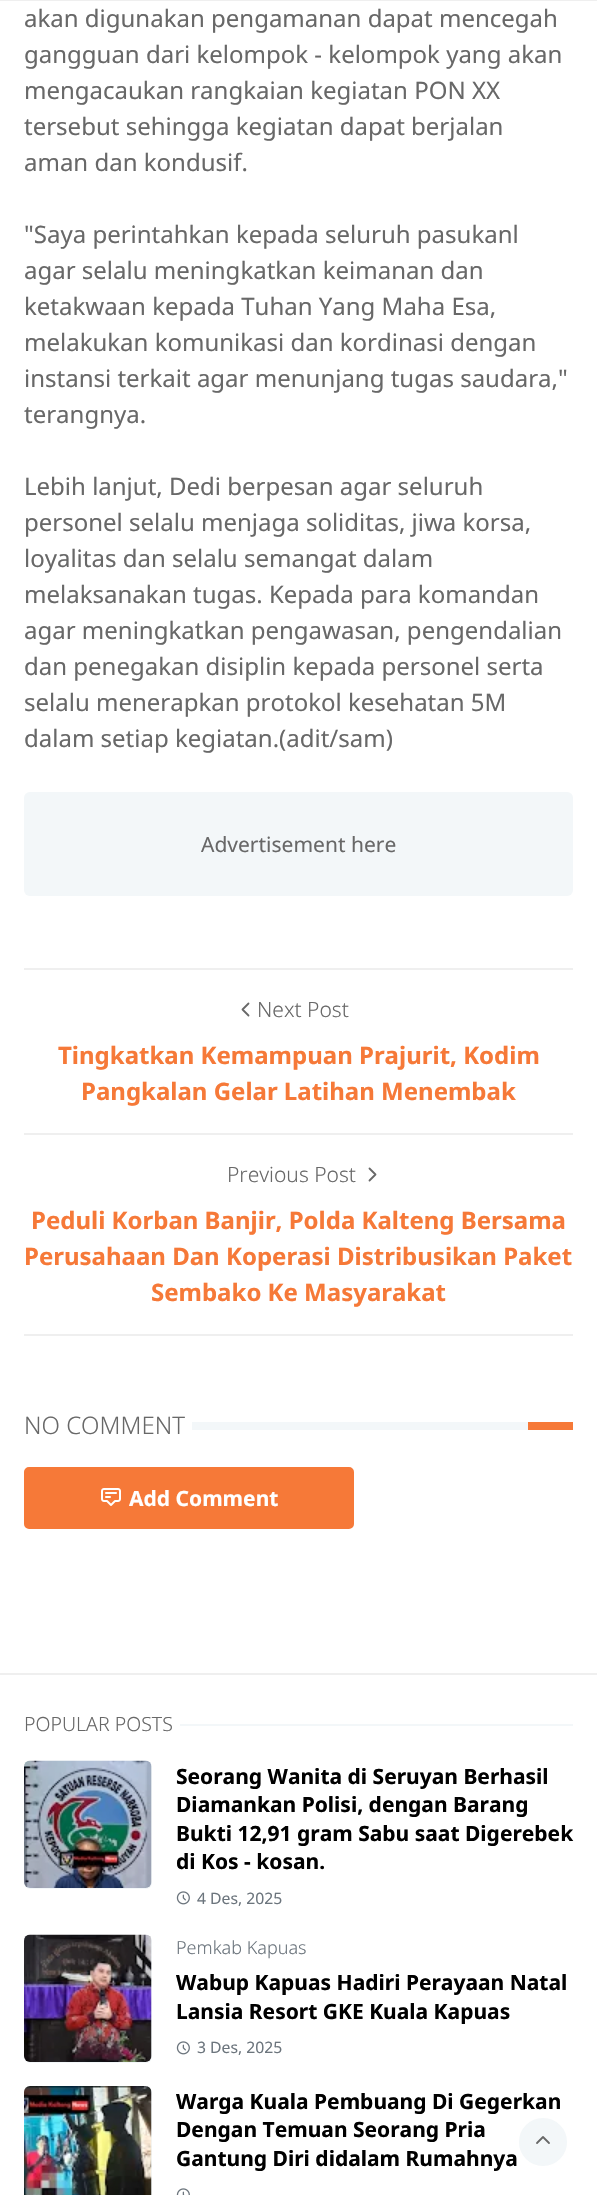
#include "include/core/SkBlurTypes.h"
#include "include/core/SkCanvas.h"
#include "include/core/SkData.h"
#include "include/core/SkFont.h"
#include "include/core/SkFontMgr.h"
#include "include/core/SkImage.h"
#include "include/core/SkMaskFilter.h"
#include "include/core/SkPaint.h"
#include "include/core/SkPathBuilder.h"
#include "include/core/SkTextBlob.h"
#include "include/effects/SkDashPathEffect.h"
#include "include/effects/SkGradientShader.h"
#include "include/utils/SkParsePath.h"

extern sk_sp<SkFontMgr> fontMgr;

static SkFont font(const char* family, int weight, float size, bool italic = false) {
    SkFontStyle style(weight, SkFontStyle::kNormal_Width,
        italic ? SkFontStyle::kItalic_Slant : SkFontStyle::kUpright_Slant);
    SkFont result(fontMgr->matchFamilyStyle(family, style), size);
    result.setSubpixel(true);
    return result;
}

static void drawLabel(SkCanvas* canvas, const char* s, float x, float y, const SkFont& font, SkColor color) {
    SkPaint ink(SkColor4f::FromColor(color));
    ink.setAntiAlias(true);
    canvas->drawString(s, x, y, font, ink);
}

static void fillRect(SkCanvas* canvas, float x, float y, float w, float h, SkColor color) {
    SkPaint ink(SkColor4f::FromColor(color));
    ink.setAntiAlias(true);
    canvas->drawRect(SkRect::MakeXYWH(x, y, w, h), ink);
}

static void fillRRect(SkCanvas* canvas, float x, float y, float w, float h, float radius, SkColor color) {
    SkPaint ink(SkColor4f::FromColor(color));
    ink.setAntiAlias(true);
    canvas->drawRoundRect(SkRect::MakeXYWH(x, y, w, h), radius, radius, ink);
}

static void drawPhoto(SkCanvas* canvas, const char* path, float x, float y, float w, float h) {
    auto image = SkImages::DeferredFromEncodedData(SkData::MakeFromFileName(path));
    canvas->drawImageRect(image, SkRect::MakeXYWH(x, y, w, h), SkSamplingOptions());
}

static SkPath parsePath(const char* data, bool evenOdd = false) {
    SkPath result = *SkParsePath::FromSVGString(data);
    if (evenOdd) result.setFillType(SkPathFillType::kEvenOdd);
    return result;
}

void draw(SkCanvas* canvas) {
    SkPaint paint;
    paint.setAntiAlias(true);
    canvas->clear(0xFFFFFFFF);
    fillRect(canvas, 0, 0, 597, 1, 0xFFEFEFEF);
    SkFont font1 = font("Noto Sans", 400, 24);
    drawLabel(canvas, "akan digunakan pengamanan dapat mencegah", 24, 27, font1, 0xFF686868);
    drawLabel(canvas, "gangguan dari kelompok - kelompok yang akan", 24, 63, font1, 0xFF686868);
    drawLabel(canvas, "mengacaukan rangkaian kegiatan PON XX", 24, 99, font1, 0xFF686868);
    drawLabel(canvas, "tersebut sehingga kegiatan dapat berjalan", 24, 135, font1, 0xFF686868);
    drawLabel(canvas, "aman dan kondusif.", 24, 171, font1, 0xFF686868);
    drawLabel(canvas, "\"Saya perintahkan kepada seluruh pasukanl", 24, 243, font1, 0xFF686868);
    drawLabel(canvas, "agar selalu meningkatkan keimanan dan", 24, 279, font1, 0xFF686868);
    drawLabel(canvas, "ketakwaan kepada Tuhan Yang Maha Esa,", 24, 315, font1, 0xFF686868);
    drawLabel(canvas, "melakukan komunikasi dan kordinasi dengan", 24, 351, font1, 0xFF686868);
    drawLabel(canvas, "instansi terkait agar menunjang tugas saudara,\"", 24, 387, font1, 0xFF686868);
    drawLabel(canvas, "terangnya.", 24, 423, font1, 0xFF686868);
    drawLabel(canvas, "Lebih lanjut, Dedi berpesan agar seluruh", 24, 495, font1, 0xFF686868);
    drawLabel(canvas, "personel selalu menjaga soliditas, jiwa korsa,", 24, 531, font1, 0xFF686868);
    drawLabel(canvas, "loyalitas dan selalu semangat dalam", 24, 567, font1, 0xFF686868);
    drawLabel(canvas, "melaksanakan tugas. Kepada para komandan", 24, 603, font1, 0xFF686868);
    drawLabel(canvas, "agar meningkatkan pengawasan, pengendalian", 24, 639, font1, 0xFF686868);
    drawLabel(canvas, "dan penegakan disiplin kepada personel serta", 24, 675, font1, 0xFF686868);
    drawLabel(canvas, "selalu menerapkan protokol kesehatan 5M", 24, 711, font1, 0xFF686868);
    drawLabel(canvas, "dalam setiap kegiatan.(adit/sam)", 24, 747, font1, 0xFF686868);
    fillRRect(canvas, 24, 792, 549, 104, 6, 0xFFF3F7F9);
    SkFont font2 = font("Noto Sans", 400, 21);
    drawLabel(canvas, "Advertisement here", 201, 852, font2, 0xFF686868);
    fillRect(canvas, 24, 968, 549, 2, 0xFFEFEFEF);
    fillRect(canvas, 24, 1334, 549, 2, 0xFFEFEFEF);
    paint.setStroke(true);
    paint.setStrokeWidth(1.8f);
    paint.setStrokeCap(SkPaint::kRound_Cap);
    paint.setStrokeJoin(SkPaint::kRound_Join);
    paint.setColor(0xFF686868);
    canvas->drawPath(parsePath("M248.5 1015.5L242.5 1009.5L248.5 1003.5"), paint);
    SkFont font3 = font("Noto Sans", 300, 21);
    drawLabel(canvas, "Next Post", 257, 1017, font3, 0xFF686868);
    SkFont font4 = font("Noto Sans", 700, 24);
    drawLabel(canvas, "Tingkatkan Kemampuan Prajurit, Kodim", 58, 1064, font4, 0xFFF67938);
    drawLabel(canvas, "Pangkalan Gelar Latihan Menembak", 81, 1100, font4, 0xFFF67938);
    fillRect(canvas, 24, 1133, 549, 2, 0xFFEFEFEF);
    drawLabel(canvas, "Previous Post", 227, 1182, font3, 0xFF686868);
    canvas->drawPath(parsePath("M369.5 1168.5L375.5 1174.5L369.5 1180.5"), paint);
    drawLabel(canvas, "Peduli Korban Banjir, Polda Kalteng Bersama", 31, 1229, font4, 0xFFF67938);
    drawLabel(canvas, "Perusahaan Dan Koperasi Distribusikan Paket", 24, 1265, font4, 0xFFF67938);
    drawLabel(canvas, "Sembako Ke Masyarakat", 151, 1301, font4, 0xFFF67938);
    SkFont font5 = font("Noto Sans", 300, 24);
    drawLabel(canvas, "NO COMMENT", 24, 1434, font5, 0xFF686868);
    fillRect(canvas, 192, 1422, 336, 8, 0xFFF3F7F9);
    fillRect(canvas, 528, 1422, 45, 8, 0xFFF67938);
    paint.setStroke(false);
    paint.setColor(0xFFF67938);
    canvas->drawRoundRect(SkRect::MakeXYWH(25.5f, 1468.5f, 327, 59), 3.5f, 3.5f, paint);
    paint.setStroke(true);
    paint.setStrokeWidth(3);
    paint.setStrokeCap(SkPaint::kButt_Cap);
    paint.setStrokeJoin(SkPaint::kMiter_Join);
    canvas->drawRoundRect(SkRect::MakeXYWH(25.5f, 1468.5f, 327, 59), 3.5f, 3.5f, paint);
    drawPhoto(canvas, "assets/img1.png", 101, 1488, 20, 18);
    SkFont font6 = font("Noto Sans", 700, 21);
    drawLabel(canvas, "Add Comment", 129, 1506, font6, 0xFFFFFFFF);
    fillRect(canvas, 0, 1673, 597, 2, 0xFFEFEFEF);
    SkFont font7 = font("Noto Sans", 300, 19.5f);
    drawLabel(canvas, "POPULAR POSTS", 24, 1731, font7, 0xFF686868);
    fillRect(canvas, 180, 1724, 393, 2, 0xFFF3F7F9);
    fillRRect(canvas, 24, 1761, 128, 128, 6, 0xFFF3F7F9);
    drawPhoto(canvas, "assets/img2.png", 24, 1760, 128, 128);
    drawLabel(canvas, "Seorang Wanita di Seruyan Berhasil", 176, 1784, font6, 0xFF000000);
    drawLabel(canvas, "Diamankan Polisi, dengan Barang", 176, 1812, font6, 0xFF000000);
    drawLabel(canvas, "Bukti 12,91 gram Sabu saat Digerebek", 176, 1841, font6, 0xFF000000);
    drawLabel(canvas, "di Kos - kosan.", 176, 1869, font6, 0xFF000000);
    drawPhoto(canvas, "assets/img3.png", 176, 1891, 14, 14);
    SkFont font8 = font("Noto Sans", 400, 15.75f);
    drawLabel(canvas, "4 Des, 2025", 197, 1904, font8, 0xFF6C757D);
    fillRRect(canvas, 24, 1935, 128, 128, 6, 0xFFF3F7F9);
    drawPhoto(canvas, "assets/img4.png", 24, 1934, 128, 128);
    SkFont font9 = font("Noto Sans", 300, 18);
    drawLabel(canvas, "Pemkab Kapuas", 176, 1954, font9, 0xFF6C757D);
    drawLabel(canvas, "Wabup Kapuas Hadiri Perayaan Natal", 176, 1990, font6, 0xFF000000);
    drawLabel(canvas, "Lansia Resort GKE Kuala Kapuas", 176, 2019, font6, 0xFF000000);
    drawPhoto(canvas, "assets/img3.png", 176, 2041, 14, 14);
    drawLabel(canvas, "3 Des, 2025", 197, 2053, font8, 0xFF6C757D);
    fillRRect(canvas, 24, 2087, 128, 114, 6, 0xFFF3F7F9);
    drawPhoto(canvas, "assets/img5.png", 24, 2086, 128, 109);
    drawLabel(canvas, "Warga Kuala Pembuang Di Gegerkan", 176, 2109, font6, 0xFF000000);
    drawLabel(canvas, "Dengan Temuan Seorang Pria", 176, 2137, font6, 0xFF000000);
    drawLabel(canvas, "Gantung Diri didalam Rumahnya", 176, 2166, font6, 0xFF000000);
    drawPhoto(canvas, "assets/img6.png", 176, 2188, 14, 7);
    paint.setStroke(false);
    paint.setColor(0xFFF3F7F9);
    canvas->drawCircle(543, 2142, 23, paint);
    paint.setStroke(true);
    paint.setStrokeWidth(2);
    canvas->drawCircle(543, 2142, 23, paint);
    paint.setStrokeWidth(1.8f);
    paint.setStrokeCap(SkPaint::kRound_Cap);
    paint.setStrokeJoin(SkPaint::kRound_Join);
    paint.setColor(0xFF686868);
    canvas->drawPath(parsePath("M537 2143L543 2137L549 2143"), paint);
}
